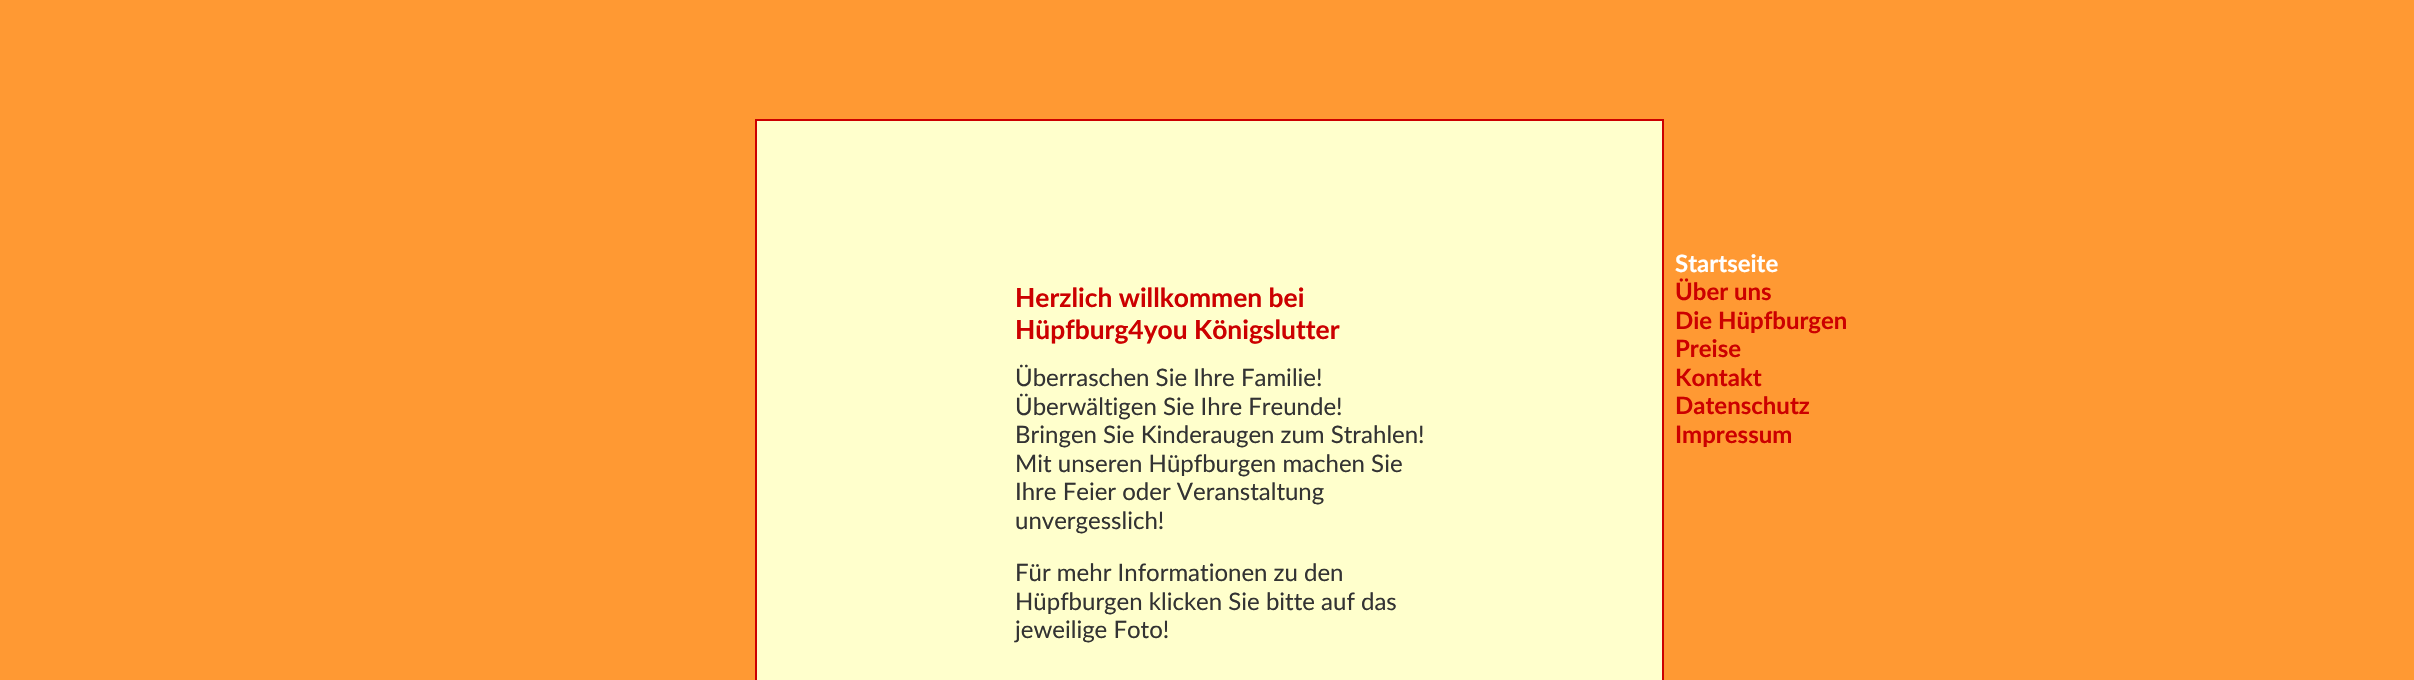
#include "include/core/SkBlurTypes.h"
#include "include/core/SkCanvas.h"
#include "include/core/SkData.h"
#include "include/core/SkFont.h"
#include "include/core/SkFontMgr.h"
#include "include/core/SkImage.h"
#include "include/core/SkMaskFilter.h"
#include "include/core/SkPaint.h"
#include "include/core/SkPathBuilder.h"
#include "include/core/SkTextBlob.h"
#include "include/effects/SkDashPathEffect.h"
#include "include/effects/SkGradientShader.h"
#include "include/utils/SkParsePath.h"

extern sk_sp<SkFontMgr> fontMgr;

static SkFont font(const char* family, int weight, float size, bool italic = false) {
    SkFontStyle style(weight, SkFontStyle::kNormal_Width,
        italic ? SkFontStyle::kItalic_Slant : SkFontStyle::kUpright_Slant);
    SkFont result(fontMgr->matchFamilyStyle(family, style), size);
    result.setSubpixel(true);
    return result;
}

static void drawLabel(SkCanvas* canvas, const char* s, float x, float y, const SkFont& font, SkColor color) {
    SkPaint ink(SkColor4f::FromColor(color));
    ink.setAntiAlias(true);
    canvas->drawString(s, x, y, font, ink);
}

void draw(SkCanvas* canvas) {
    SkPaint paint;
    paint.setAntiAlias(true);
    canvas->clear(0xFFFF9933);
    paint.setColor(0xFFFFFFCC);
    canvas->drawRect(SkRect::MakeXYWH(756, 120, 907, 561), paint);
    paint.setStroke(true);
    paint.setStrokeWidth(2);
    paint.setColor(0xFFCC0000);
    canvas->drawRect(SkRect::MakeXYWH(756, 120, 907, 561), paint);
    SkFont font1 = font("Lato", 700, 26.4f);
    drawLabel(canvas, "Herzlich willkommen bei", 1015, 307, font1, 0xFFCC0000);
    drawLabel(canvas, "Hüpfburg4you Königslutter", 1015, 339, font1, 0xFFCC0000);
    SkFont font2 = font("Lato", 400, 24);
    drawLabel(canvas, "Überraschen Sie Ihre Familie!", 1015, 386, font2, 0xFF333333);
    drawLabel(canvas, "Überwältigen Sie Ihre Freunde!", 1015, 415, font2, 0xFF333333);
    drawLabel(canvas, "Bringen Sie Kinderaugen zum Strahlen!", 1015, 443, font2, 0xFF333333);
    drawLabel(canvas, "Mit unseren Hüpfburgen machen Sie", 1015, 472, font2, 0xFF333333);
    drawLabel(canvas, "Ihre Feier oder Veranstaltung", 1015, 500, font2, 0xFF333333);
    drawLabel(canvas, "unvergesslich!", 1015, 529, font2, 0xFF333333);
    drawLabel(canvas, "Für mehr Informationen zu den", 1015, 581, font2, 0xFF333333);
    drawLabel(canvas, "Hüpfburgen klicken Sie bitte auf das", 1015, 610, font2, 0xFF333333);
    drawLabel(canvas, "jeweilige Foto!", 1015, 638, font2, 0xFF333333);
    SkFont font3 = font("Lato", 700, 24);
    drawLabel(canvas, "Startseite", 1675, 272, font3, 0xFFFFFFFF);
    drawLabel(canvas, "Über uns", 1675, 300, font3, 0xFFCC0000);
    drawLabel(canvas, "Die Hüpfburgen", 1675, 329, font3, 0xFFCC0000);
    drawLabel(canvas, "Preise", 1675, 357, font3, 0xFFCC0000);
    drawLabel(canvas, "Kontakt", 1675, 386, font3, 0xFFCC0000);
    drawLabel(canvas, "Datenschutz", 1675, 414, font3, 0xFFCC0000);
    drawLabel(canvas, "Impressum", 1675, 443, font3, 0xFFCC0000);
}
